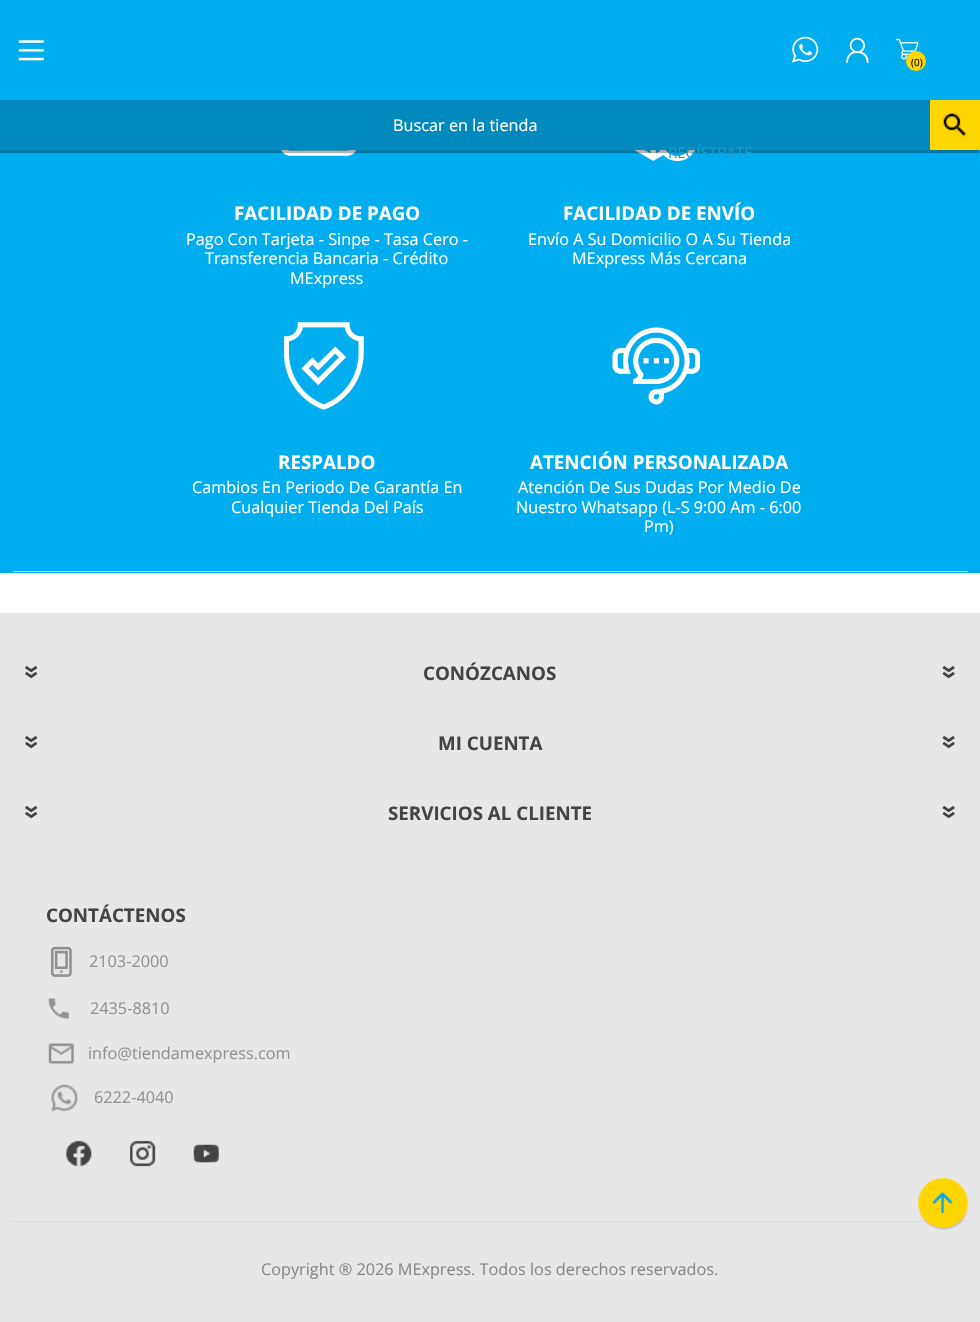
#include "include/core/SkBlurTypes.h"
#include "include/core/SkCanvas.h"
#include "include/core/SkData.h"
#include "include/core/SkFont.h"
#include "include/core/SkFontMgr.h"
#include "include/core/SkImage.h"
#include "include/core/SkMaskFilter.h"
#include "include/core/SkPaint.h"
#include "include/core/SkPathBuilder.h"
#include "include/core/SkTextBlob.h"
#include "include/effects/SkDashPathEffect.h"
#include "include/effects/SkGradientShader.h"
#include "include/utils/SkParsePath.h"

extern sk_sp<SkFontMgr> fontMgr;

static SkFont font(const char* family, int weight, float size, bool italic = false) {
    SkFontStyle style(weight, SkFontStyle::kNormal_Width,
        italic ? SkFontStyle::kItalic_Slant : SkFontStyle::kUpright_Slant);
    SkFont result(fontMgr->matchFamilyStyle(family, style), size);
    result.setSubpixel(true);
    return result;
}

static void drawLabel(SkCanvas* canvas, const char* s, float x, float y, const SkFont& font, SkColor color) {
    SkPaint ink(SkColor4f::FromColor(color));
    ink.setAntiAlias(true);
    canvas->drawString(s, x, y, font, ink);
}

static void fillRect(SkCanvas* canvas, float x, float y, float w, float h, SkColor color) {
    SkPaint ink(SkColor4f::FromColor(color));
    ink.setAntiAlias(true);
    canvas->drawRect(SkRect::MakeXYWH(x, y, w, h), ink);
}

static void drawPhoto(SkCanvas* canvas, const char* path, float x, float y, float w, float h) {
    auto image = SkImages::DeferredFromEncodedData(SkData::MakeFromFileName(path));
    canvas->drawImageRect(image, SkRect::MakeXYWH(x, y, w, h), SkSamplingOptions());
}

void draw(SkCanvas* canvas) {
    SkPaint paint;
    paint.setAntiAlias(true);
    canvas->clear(0xFFE7E7E7);
    fillRect(canvas, 0, 0, 980, 100, 0xFF00AEEF);
    fillRect(canvas, 0, 150, 980, 423, 0xFF00AEEF);
    drawPhoto(canvas, "assets/img6.png", 281, 150, 76, 6);
    drawPhoto(canvas, "assets/img7.png", 634, 150, 62, 11);
    paint.setColor(0x4D000000);
    paint.setMaskFilter(SkMaskFilter::MakeBlur(kNormal_SkBlurStyle, 0.5f));
    canvas->drawRect(SkRect::MakeXYWH(-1, 103, 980, 50), paint);
    paint.setMaskFilter(nullptr);
    fillRect(canvas, 0, 100, 930, 50, 0xFF0089BC);
    SkFont font1 = font("Open Sans", 400, 16.25f);
    drawLabel(canvas, "Buscar en la tienda", 393, 131, font1, 0xFFFFFFFF);
    fillRect(canvas, 930, 100, 50, 50, 0xFFFFD600);
    drawPhoto(canvas, "assets/img1.png", 943, 113, 24, 24);
    drawPhoto(canvas, "assets/img2.png", 18, 40, 26, 21);
    drawPhoto(canvas, "assets/img3.png", 792, 36, 27, 27);
    drawPhoto(canvas, "assets/img4.png", 895, 38, 24, 22);
    paint.setColor(0xFFFFD600);
    canvas->drawCircle(916, 61, 10, paint);
    SkFont font2 = font("Open Sans", 400, 10);
    drawLabel(canvas, "(0)", 911, 66, font2, 0xFF000000);
    drawPhoto(canvas, "assets/img5.png", 846, 37, 23, 26);
    SkFont font3 = font("Open Sans", 400, 15);
    drawLabel(canvas, "REGÍSTRATE", 668, 158, font3, 0xFF179CCE);
    fillRect(canvas, 0, 573, 980, 40, 0xFFFFFFFF);
    fillRect(canvas, 13, 571, 955, 1, 0xFFE4E4E4);
    SkFont font4 = font("Open Sans", 700, 18.75f);
    drawLabel(canvas, "FACILIDAD DE PAGO", 234, 220, font4, 0xFFFFFFFF);
    drawLabel(canvas, "Pago Con Tarjeta - Sinpe - Tasa Cero -", 186, 245, font1, 0xFFFFFFFF);
    drawLabel(canvas, "Transferencia Bancaria - Crédito", 205, 264, font1, 0xFFFFFFFF);
    drawLabel(canvas, "MExpress", 290, 284, font1, 0xFFFFFFFF);
    drawLabel(canvas, "FACILIDAD DE ENVÍO", 563, 220, font4, 0xFFFFFFFF);
    drawLabel(canvas, "Envío A Su Domicilio O A Su Tienda", 528, 245, font1, 0xFFFFFFFF);
    drawLabel(canvas, "MExpress Más Cercana", 572, 264, font1, 0xFFFFFFFF);
    drawPhoto(canvas, "assets/img8.png", 284, 322, 80, 88);
    drawLabel(canvas, "RESPALDO", 278, 469, font4, 0xFFFFFFFF);
    drawLabel(canvas, "Cambios En Periodo De Garantía En", 192, 493, font1, 0xFFFFFFFF);
    drawLabel(canvas, "Cualquier Tienda Del País", 231, 513, font1, 0xFFFFFFFF);
    drawPhoto(canvas, "assets/img9.png", 612, 327, 88, 78);
    drawLabel(canvas, "ATENCIÓN PERSONALIZADA", 530, 469, font4, 0xFFFFFFFF);
    drawLabel(canvas, "Atención De Sus Dudas Por Medio De", 518, 493, font1, 0xFFFFFFFF);
    drawLabel(canvas, "Nuestro Whatsapp (L-S 9:00 Am - 6:00", 516, 513, font1, 0xFFFFFFFF);
    drawLabel(canvas, "Pm)", 644, 532, font1, 0xFFFFFFFF);
    drawPhoto(canvas, "assets/img10.png", 25, 665, 13, 14);
    drawLabel(canvas, "CONÓZCANOS", 423, 680, font4, 0xFF444444);
    drawPhoto(canvas, "assets/img11.png", 942, 665, 13, 14);
    drawPhoto(canvas, "assets/img10.png", 25, 735, 13, 14);
    drawLabel(canvas, "MI CUENTA", 438, 750, font4, 0xFF444444);
    drawPhoto(canvas, "assets/img11.png", 942, 735, 13, 14);
    drawPhoto(canvas, "assets/img10.png", 25, 805, 13, 14);
    drawLabel(canvas, "SERVICIOS AL CLIENTE", 388, 820, font4, 0xFF444444);
    drawPhoto(canvas, "assets/img11.png", 942, 805, 13, 14);
    drawLabel(canvas, "CONTÁCTENOS", 46, 922, font4, 0xFF444444);
    drawPhoto(canvas, "assets/img12.png", 50, 946, 22, 31);
    drawLabel(canvas, "2103-2000", 89, 967, font1, 0xFF929292);
    drawPhoto(canvas, "assets/img13.png", 48, 998, 21, 21);
    drawLabel(canvas, "2435-8810", 90, 1014, font1, 0xFF929292);
    drawPhoto(canvas, "assets/img14.png", 48, 1043, 26, 21);
    drawLabel(canvas, "info@tiendamexpress.com", 88, 1059, font1, 0xFF929292);
    drawPhoto(canvas, "assets/img15.png", 51, 1084, 27, 28);
    drawLabel(canvas, "6222-4040", 94, 1103, font1, 0xFF929292);
    drawPhoto(canvas, "assets/img16.png", 66, 1140, 26, 27);
    drawPhoto(canvas, "assets/img17.png", 129, 1140, 27, 27);
    drawPhoto(canvas, "assets/img18.png", 193, 1144, 26, 19);
    fillRect(canvas, 11, 1221, 958, 1, 0xFFDBDBDB);
    drawLabel(canvas, "Copyright ® 2026 MExpress. Todos los derechos reservados.", 261, 1275, font1, 0xFF888888);
    drawPhoto(canvas, "assets/img19.png", 918, 1177, 50, 53);
}
